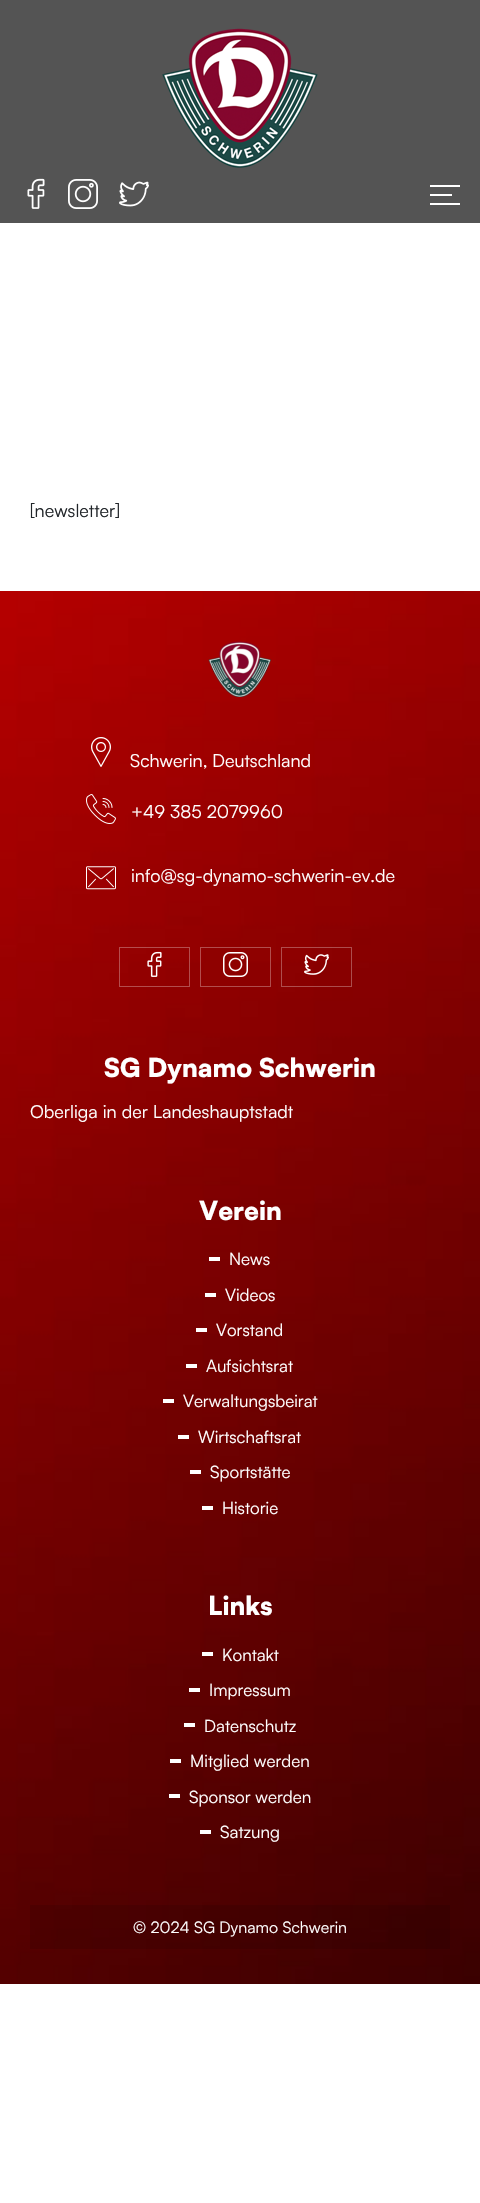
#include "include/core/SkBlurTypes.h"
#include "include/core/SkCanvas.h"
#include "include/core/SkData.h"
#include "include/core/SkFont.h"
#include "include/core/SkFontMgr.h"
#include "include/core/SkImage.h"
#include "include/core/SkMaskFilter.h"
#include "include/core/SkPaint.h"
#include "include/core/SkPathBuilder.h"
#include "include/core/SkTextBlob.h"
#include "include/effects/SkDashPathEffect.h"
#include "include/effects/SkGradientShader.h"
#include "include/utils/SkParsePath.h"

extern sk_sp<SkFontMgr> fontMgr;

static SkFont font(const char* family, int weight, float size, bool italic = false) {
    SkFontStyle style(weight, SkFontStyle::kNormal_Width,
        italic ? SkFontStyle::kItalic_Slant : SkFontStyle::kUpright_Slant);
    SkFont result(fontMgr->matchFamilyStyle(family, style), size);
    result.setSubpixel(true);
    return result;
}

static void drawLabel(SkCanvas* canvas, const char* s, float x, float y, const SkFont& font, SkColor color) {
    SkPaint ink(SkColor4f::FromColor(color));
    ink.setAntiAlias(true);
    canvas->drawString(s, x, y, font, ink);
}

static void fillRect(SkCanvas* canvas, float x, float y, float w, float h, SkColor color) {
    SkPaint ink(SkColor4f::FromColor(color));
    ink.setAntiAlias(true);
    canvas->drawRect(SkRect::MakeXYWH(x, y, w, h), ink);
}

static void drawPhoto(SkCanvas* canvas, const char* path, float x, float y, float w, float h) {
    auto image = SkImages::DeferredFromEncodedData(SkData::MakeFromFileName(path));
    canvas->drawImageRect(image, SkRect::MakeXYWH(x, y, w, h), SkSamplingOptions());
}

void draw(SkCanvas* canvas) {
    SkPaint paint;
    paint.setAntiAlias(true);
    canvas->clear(0xFFFFFFFF);
    fillRect(canvas, 0, 0, 480, 223, 0xFF545454);
    drawPhoto(canvas, "assets/img1.png", 162, 28, 156, 140);
    drawPhoto(canvas, "assets/img2.png", 27, 178, 18, 31);
    drawPhoto(canvas, "assets/img3.png", 68, 179, 30, 30);
    drawPhoto(canvas, "assets/img4.png", 119, 181, 30, 26);
    fillRect(canvas, 430, 185, 30, 2, 0xFFFFFFFF);
    fillRect(canvas, 430, 194, 22, 2, 0xFFFFFFFF);
    fillRect(canvas, 430, 203, 30, 2, 0xFFFFFFFF);
    SkFont font1 = font("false", 400, 18);
    drawLabel(canvas, "[newsletter]", 30, 517, font1, 0xFF212529);
    drawPhoto(canvas, "assets/img5.png", 0, 591, 480, 1393);
    drawPhoto(canvas, "assets/img6.png", 208, 641, 64, 56);
    drawPhoto(canvas, "assets/img7.png", 91, 737, 20, 30);
    drawLabel(canvas, "Schwerin, Deutschland", 130, 767, font1, 0xFFFFFFFF);
    drawPhoto(canvas, "assets/img8.png", 86, 794, 30, 30);
    drawLabel(canvas, "+49 385 2079960", 131, 818, font1, 0xFFFFFFFF);
    drawPhoto(canvas, "assets/img9.png", 86, 866, 30, 24);
    drawLabel(canvas, "info@sg-dynamo-schwerin-ev.de", 131, 882, font1, 0xFFFFFFFF);
    paint.setStroke(true);
    paint.setStrokeWidth(1);
    paint.setColor(0x4DFFFFFF);
    canvas->drawRect(SkRect::MakeXYWH(119.5f, 947.5f, 70, 39), paint);
    drawPhoto(canvas, "assets/img10.png", 147, 951, 15, 26);
    canvas->drawRect(SkRect::MakeXYWH(200.5f, 947.5f, 70, 39), paint);
    drawPhoto(canvas, "assets/img11.png", 223, 952, 25, 25);
    canvas->drawRect(SkRect::MakeXYWH(281.5f, 947.5f, 70, 39), paint);
    drawPhoto(canvas, "assets/img12.png", 304, 954, 25, 21);
    SkFont font2 = font("Satoshi", 900, 26);
    drawLabel(canvas, "SG Dynamo Schwerin", 104, 1077, font2, 0xFFFFFFFF);
    drawLabel(canvas, "Oberliga in der Landeshauptstadt", 30, 1118, font1, 0xFFFFFFFF);
    drawLabel(canvas, "Verein", 199, 1220, font2, 0xFFFFFFFF);
    fillRect(canvas, 209, 1257, 11, 4, 0xFFFFFFFF);
    SkFont font3 = font("false", 400, 17);
    drawLabel(canvas, "News", 229, 1265, font3, 0xFFFFFFFF);
    fillRect(canvas, 205, 1293, 11, 4, 0xFFFFFFFF);
    drawLabel(canvas, "Videos", 225, 1301, font3, 0xFFFFFFFF);
    fillRect(canvas, 196, 1328, 11, 4, 0xFFFFFFFF);
    drawLabel(canvas, "Vorstand", 216, 1336, font3, 0xFFFFFFFF);
    fillRect(canvas, 186, 1364, 11, 4, 0xFFFFFFFF);
    drawLabel(canvas, "Aufsichtsrat", 206, 1372, font3, 0xFFFFFFFF);
    fillRect(canvas, 163, 1399, 11, 4, 0xFFFFFFFF);
    drawLabel(canvas, "Verwaltungsbeirat", 183, 1407, font3, 0xFFFFFFFF);
    fillRect(canvas, 178, 1435, 11, 4, 0xFFFFFFFF);
    drawLabel(canvas, "Wirtschaftsrat", 198, 1443, font3, 0xFFFFFFFF);
    fillRect(canvas, 190, 1470, 11, 4, 0xFFFFFFFF);
    drawLabel(canvas, "Sportstätte", 210, 1478, font3, 0xFFFFFFFF);
    fillRect(canvas, 202, 1506, 11, 4, 0xFFFFFFFF);
    drawLabel(canvas, "Historie", 222, 1514, font3, 0xFFFFFFFF);
    drawLabel(canvas, "Links", 208, 1615, font2, 0xFFFFFFFF);
    fillRect(canvas, 202, 1652, 11, 4, 0xFFFFFFFF);
    drawLabel(canvas, "Kontakt", 222, 1661, font3, 0xFFFFFFFF);
    fillRect(canvas, 189, 1688, 11, 4, 0xFFFFFFFF);
    drawLabel(canvas, "Impressum", 209, 1696, font3, 0xFFFFFFFF);
    fillRect(canvas, 184, 1723, 11, 4, 0xFFFFFFFF);
    drawLabel(canvas, "Datenschutz", 204, 1732, font3, 0xFFFFFFFF);
    fillRect(canvas, 170, 1759, 11, 4, 0xFFFFFFFF);
    drawLabel(canvas, "Mitglied werden", 190, 1767, font3, 0xFFFFFFFF);
    fillRect(canvas, 169, 1794, 11, 4, 0xFFFFFFFF);
    drawLabel(canvas, "Sponsor werden", 189, 1803, font3, 0xFFFFFFFF);
    fillRect(canvas, 200, 1830, 11, 4, 0xFFFFFFFF);
    drawLabel(canvas, "Satzung", 220, 1838, font3, 0xFFFFFFFF);
    fillRect(canvas, 30, 1905, 420, 44, 0x1C000000);
    SkFont font4 = font("false", 400, 16);
    drawLabel(canvas, "© 2024 SG Dynamo Schwerin", 133, 1933, font4, 0xFFFFFFFF);
}
